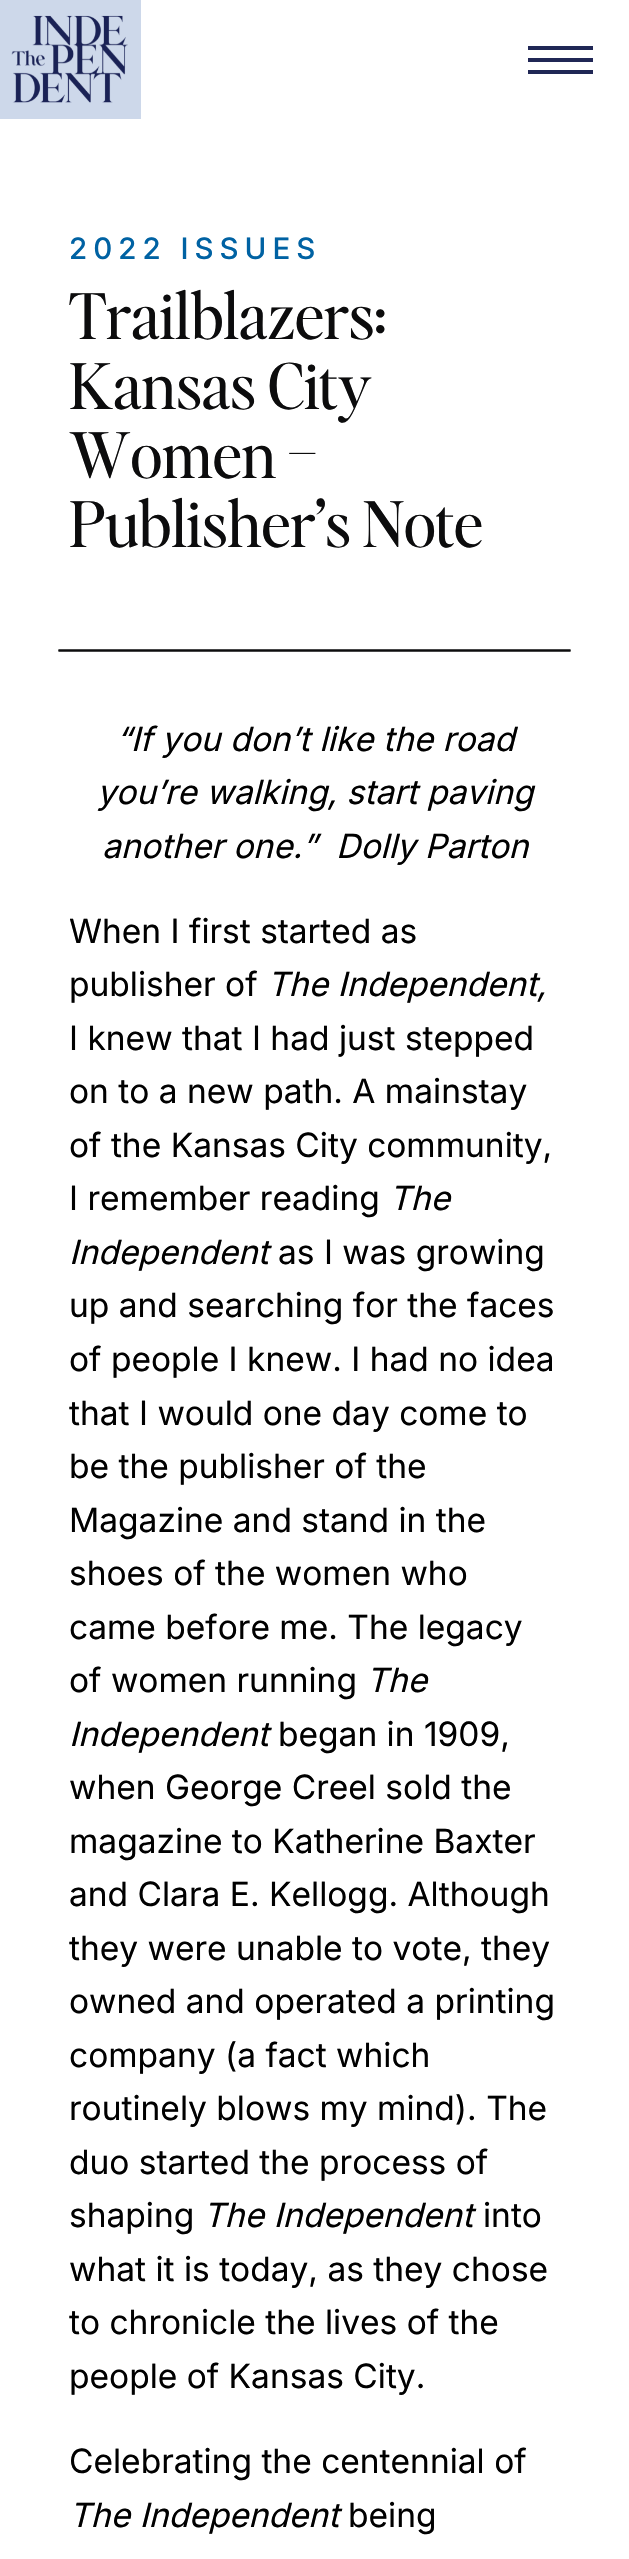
#include "include/core/SkBlurTypes.h"
#include "include/core/SkCanvas.h"
#include "include/core/SkData.h"
#include "include/core/SkFont.h"
#include "include/core/SkFontMgr.h"
#include "include/core/SkImage.h"
#include "include/core/SkMaskFilter.h"
#include "include/core/SkPaint.h"
#include "include/core/SkPathBuilder.h"
#include "include/core/SkTextBlob.h"
#include "include/effects/SkDashPathEffect.h"
#include "include/effects/SkGradientShader.h"
#include "include/utils/SkParsePath.h"

extern sk_sp<SkFontMgr> fontMgr;

static SkFont font(const char* family, int weight, float size, bool italic = false) {
    SkFontStyle style(weight, SkFontStyle::kNormal_Width,
        italic ? SkFontStyle::kItalic_Slant : SkFontStyle::kUpright_Slant);
    SkFont result(fontMgr->matchFamilyStyle(family, style), size);
    result.setSubpixel(true);
    return result;
}

static void drawLabel(SkCanvas* canvas, const char* s, float x, float y, const SkFont& font, SkColor color) {
    SkPaint ink(SkColor4f::FromColor(color));
    ink.setAntiAlias(true);
    canvas->drawString(s, x, y, font, ink);
}

static void drawTracked(SkCanvas* canvas, const char* s, float x, float y, const SkFont& font, const SkPaint& ink, float letter, float word) {
    std::vector<SkGlyphID> glyphs(font.countText(s, strlen(s), SkTextEncoding::kUTF8));
    std::vector<float> xs(glyphs.size());
    font.textToGlyphs(s, strlen(s), SkTextEncoding::kUTF8, glyphs);
    font.getXPos(glyphs, xs, x);
    float extra = 0;
    for (size_t i = 0; i < glyphs.size(); i++) {
        xs[i] += extra;
        extra += letter + word * (glyphs[i] == font.unicharToGlyph(' '));
    }
    canvas->drawTextBlob(SkTextBlob::MakeFromPosHGlyphs(glyphs, xs, y, font), 0, 0, ink);
}

static void fillRect(SkCanvas* canvas, float x, float y, float w, float h, SkColor color) {
    SkPaint ink(SkColor4f::FromColor(color));
    ink.setAntiAlias(true);
    canvas->drawRect(SkRect::MakeXYWH(x, y, w, h), ink);
}

static void drawPhoto(SkCanvas* canvas, const char* path, float x, float y, float w, float h) {
    auto image = SkImages::DeferredFromEncodedData(SkData::MakeFromFileName(path));
    canvas->drawImageRect(image, SkRect::MakeXYWH(x, y, w, h), SkSamplingOptions());
}

static SkPath parsePath(const char* data, bool evenOdd = false) {
    SkPath result = *SkParsePath::FromSVGString(data);
    if (evenOdd) result.setFillType(SkPathFillType::kEvenOdd);
    return result;
}

void draw(SkCanvas* canvas) {
    SkPaint paint;
    paint.setAntiAlias(true);
    canvas->clear(0xFFFFFFFF);
    fillRect(canvas, 0, 0, 141, 119, 0xFFCDD8EA);
    drawPhoto(canvas, "assets/img1.png", 11, 15, 117, 88);
    paint.setColor(0xFF202755);
    canvas->drawPath(parsePath("M528 46H593V50H528ZM528 58H593V62H528ZM528 70H593V74H528Z"), paint);
    SkFont font1 = font("Inter", 500, 29.5f);
    paint.setColor(0xFF0062A3);
    drawTracked(canvas, "2022 ISSUES", 69, 259, font1, paint, 6, 0);
    SkFont font2 = font("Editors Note", 400, 63);
    drawLabel(canvas, "Trailblazers:", 69, 339, font2, 0xFF0C0C0D);
    drawLabel(canvas, "Kansas City", 69, 409, font2, 0xFF0C0C0D);
    drawLabel(canvas, "Women –", 69, 478, font2, 0xFF0C0C0D);
    drawLabel(canvas, "Publisher’s Note", 69, 547, font2, 0xFF0C0C0D);
    paint.setStroke(true);
    paint.setStrokeWidth(2);
    paint.setColor(0xFF0C0C0D);
    canvas->drawPath(parsePath("M58.5 650.5H570.5"), paint);
    canvas->drawPath(parsePath("M58.5 650.5H570.5"), paint);
    SkFont font3 = font("Inter", 400, 33.5f, true);
    drawLabel(canvas, "“If you don’t like the road", 116, 751, font3, 0xFF000000);
    drawLabel(canvas, "you’re walking, start paving", 97, 804, font3, 0xFF000000);
    drawLabel(canvas, "another one.”", 102, 858, font3, 0xFF000000);
    drawLabel(canvas, "Dolly Parton", 336, 858, font3, 0xFF000000);
    SkFont font4 = font("Inter", 400, 33.5f);
    drawLabel(canvas, "When I first started as", 69, 943, font4, 0xFF000000);
    drawLabel(canvas, "publisher of", 69, 996, font4, 0xFF000000);
    drawLabel(canvas, "The Independent,", 267, 996, font3, 0xFF000000);
    drawLabel(canvas, "I knew that I had just stepped", 69, 1050, font4, 0xFF000000);
    drawLabel(canvas, "on to a new path. A mainstay", 69, 1103, font4, 0xFF000000);
    drawLabel(canvas, "of the Kansas City community,", 69, 1157, font4, 0xFF000000);
    drawLabel(canvas, "I remember reading", 69, 1210, font4, 0xFF000000);
    drawLabel(canvas, "The", 389, 1210, font3, 0xFF000000);
    drawLabel(canvas, "Independent", 69, 1264, font3, 0xFF000000);
    drawLabel(canvas, "as I was growing", 278, 1264, font4, 0xFF000000);
    drawLabel(canvas, "up and searching for the faces", 69, 1317, font4, 0xFF000000);
    drawLabel(canvas, "of people I knew. I had no idea", 69, 1371, font4, 0xFF000000);
    drawLabel(canvas, "that I would one day come to", 69, 1425, font4, 0xFF000000);
    drawLabel(canvas, "be the publisher of the", 69, 1478, font4, 0xFF000000);
    drawLabel(canvas, "Magazine and stand in the", 69, 1532, font4, 0xFF000000);
    drawLabel(canvas, "shoes of the women who", 69, 1585, font4, 0xFF000000);
    drawLabel(canvas, "came before me. The legacy", 69, 1639, font4, 0xFF000000);
    drawLabel(canvas, "of women running", 69, 1692, font4, 0xFF000000);
    drawLabel(canvas, "The", 366, 1692, font3, 0xFF000000);
    drawLabel(canvas, "Independent", 69, 1746, font3, 0xFF000000);
    drawLabel(canvas, "began in 1909,", 278, 1746, font4, 0xFF000000);
    drawLabel(canvas, "when George Creel sold the", 69, 1799, font4, 0xFF000000);
    drawLabel(canvas, "magazine to Katherine Baxter", 69, 1853, font4, 0xFF000000);
    drawLabel(canvas, "and Clara E. Kellogg. Although", 69, 1906, font4, 0xFF000000);
    drawLabel(canvas, "they were unable to vote, they", 69, 1960, font4, 0xFF000000);
    drawLabel(canvas, "owned and operated a printing", 69, 2013, font4, 0xFF000000);
    drawLabel(canvas, "company (a fact which", 69, 2067, font4, 0xFF000000);
    drawLabel(canvas, "routinely blows my mind). The", 69, 2120, font4, 0xFF000000);
    drawLabel(canvas, "duo started the process of", 69, 2174, font4, 0xFF000000);
    drawLabel(canvas, "shaping", 69, 2227, font4, 0xFF000000);
    drawLabel(canvas, "The Independent", 203, 2227, font3, 0xFF000000);
    drawLabel(canvas, "into", 483, 2227, font4, 0xFF000000);
    drawLabel(canvas, "what it is today, as they chose", 69, 2281, font4, 0xFF000000);
    drawLabel(canvas, "to chronicle the lives of the", 69, 2334, font4, 0xFF000000);
    drawLabel(canvas, "people of Kansas City.", 69, 2388, font4, 0xFF000000);
    drawLabel(canvas, "Celebrating the centennial of", 69, 2473, font4, 0xFF000000);
    drawLabel(canvas, "The Independent", 69, 2527, font3, 0xFF000000);
    drawLabel(canvas, "being", 348, 2527, font4, 0xFF000000);
}
